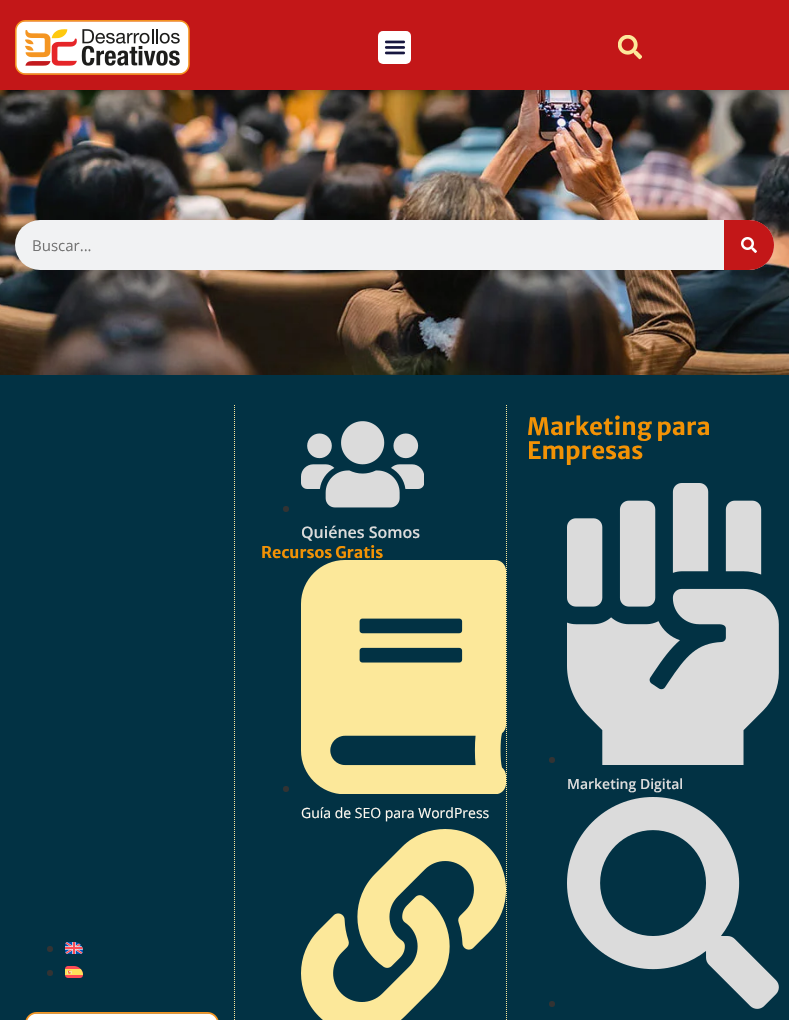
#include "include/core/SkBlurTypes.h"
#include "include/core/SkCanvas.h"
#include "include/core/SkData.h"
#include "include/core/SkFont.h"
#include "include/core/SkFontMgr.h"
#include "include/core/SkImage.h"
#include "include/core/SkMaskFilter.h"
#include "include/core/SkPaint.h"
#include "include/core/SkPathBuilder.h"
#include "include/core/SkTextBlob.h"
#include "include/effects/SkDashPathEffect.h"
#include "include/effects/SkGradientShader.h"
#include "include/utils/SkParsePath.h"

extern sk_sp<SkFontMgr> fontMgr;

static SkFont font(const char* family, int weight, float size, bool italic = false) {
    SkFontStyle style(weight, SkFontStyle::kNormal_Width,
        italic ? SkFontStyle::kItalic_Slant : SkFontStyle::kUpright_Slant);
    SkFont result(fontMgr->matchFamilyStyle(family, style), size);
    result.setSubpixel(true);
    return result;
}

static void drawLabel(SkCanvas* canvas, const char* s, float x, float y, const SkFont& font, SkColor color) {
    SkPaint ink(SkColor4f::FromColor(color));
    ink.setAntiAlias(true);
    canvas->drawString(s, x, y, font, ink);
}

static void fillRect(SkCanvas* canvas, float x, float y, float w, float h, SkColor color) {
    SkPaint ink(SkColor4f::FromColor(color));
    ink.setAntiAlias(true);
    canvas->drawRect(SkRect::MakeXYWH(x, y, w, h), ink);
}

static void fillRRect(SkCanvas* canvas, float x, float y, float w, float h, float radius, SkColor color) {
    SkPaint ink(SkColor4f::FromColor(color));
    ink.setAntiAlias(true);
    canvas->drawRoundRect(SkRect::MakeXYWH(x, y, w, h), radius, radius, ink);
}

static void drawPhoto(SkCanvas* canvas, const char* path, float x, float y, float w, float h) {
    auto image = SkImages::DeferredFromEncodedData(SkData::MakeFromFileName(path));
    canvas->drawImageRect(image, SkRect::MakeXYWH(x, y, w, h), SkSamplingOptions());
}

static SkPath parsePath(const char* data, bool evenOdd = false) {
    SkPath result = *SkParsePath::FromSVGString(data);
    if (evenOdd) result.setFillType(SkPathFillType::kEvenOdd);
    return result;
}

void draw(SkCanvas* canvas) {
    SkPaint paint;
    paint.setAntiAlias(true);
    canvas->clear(0xFF023244);
    drawPhoto(canvas, "assets/img4.png", 0, 90, 789, 285);
    paint.setColor(0x80000000);
    paint.setMaskFilter(SkMaskFilter::MakeBlur(kNormal_SkBlurStyle, 5));
    canvas->drawRect(SkRect::MakeXYWH(0, 0, 789, 90), paint);
    paint.setMaskFilter(nullptr);
    fillRect(canvas, 0, 0, 789, 90, 0xFFC31718);
    drawPhoto(canvas, "assets/img1.png", 15, 20, 175, 55);
    fillRRect(canvas, 378, 31, 33, 33, 5, 0xFFFFFFFF);
    drawPhoto(canvas, "assets/img2.png", 384, 40, 22, 15);
    drawPhoto(canvas, "assets/img3.png", 618, 35, 24, 25);
    fillRRect(canvas, 15, 220, 759, 50, 25, 0xFFF1F2F3);
    SkFont font1 = font("Open Sans", 400, 15);
    drawLabel(canvas, "Buscar...", 32, 251, font1, 0xFF757575);
    paint.setColor(0xFFC31718);
    canvas->drawPath(parsePath("M724 220H749C763 220 774 231 774 245C774 259 763 270 749 270H724Z"), paint);
    drawPhoto(canvas, "assets/img5.png", 741, 237, 16, 16);
    paint.setStroke(true);
    paint.setStrokeWidth(1);
    paint.setColor(0xFFFCE89A);
    paint.setPathEffect(SkDashPathEffect::Make({{1, 1}}, 0));
    canvas->drawPath(parsePath("M234.5 405V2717"), paint);
    paint.setPathEffect(nullptr);
    paint.setStroke(false);
    paint.setColor(0xFF333333);
    canvas->drawCircle(50, 949, 3, paint);
    drawPhoto(canvas, "assets/img6.png", 65, 942, 18, 12);
    canvas->drawCircle(50, 973, 3, paint);
    drawPhoto(canvas, "assets/img7.png", 65, 966, 18, 12);
    drawPhoto(canvas, "assets/img8.png", 25, 1012, 194, 8);
    paint.setStroke(true);
    paint.setColor(0xFFFCE89A);
    paint.setPathEffect(SkDashPathEffect::Make({{1, 1}}, 0));
    canvas->drawPath(parsePath("M506.5 405V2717"), paint);
    paint.setPathEffect(nullptr);
    drawPhoto(canvas, "assets/img9.png", 301, 421, 123, 87);
    paint.setStroke(false);
    paint.setColor(0xFF333333);
    canvas->drawCircle(286, 509, 3, paint);
    SkFont font2 = font("Open Sans", 600, 16);
    drawLabel(canvas, "Quiénes Somos", 301, 538, font2, 0xFFDBDBDB);
    SkFont font3 = font("Merriweather Sans", 700, 16);
    drawLabel(canvas, "Recursos Gratis", 261, 558, font3, 0xFFF29205);
    canvas->drawCircle(286, 789, 3, paint);
    drawPhoto(canvas, "assets/img10.png", 301, 560, 205, 234);
    SkFont font4 = font("Open Sans", 400, 14);
    drawLabel(canvas, "Guía de SEO para WordPress", 301, 818, font4, 0xFFFFF9F0);
    drawPhoto(canvas, "assets/img11.png", 301, 829, 205, 191);
    SkFont font5 = font("Merriweather Sans", 700, 24);
    drawLabel(canvas, "Marketing para", 527, 435, font5, 0xFFF29205);
    drawLabel(canvas, "Empresas", 527, 459, font5, 0xFFF29205);
    canvas->drawCircle(552, 760, 3, paint);
    drawPhoto(canvas, "assets/img12.png", 567, 483, 212, 282);
    SkFont font6 = font("Open Sans", 600, 14);
    drawLabel(canvas, "Marketing Digital", 567, 789, font6, 0xFFDBDBDB);
    canvas->drawCircle(552, 1004, 3, paint);
    drawPhoto(canvas, "assets/img13.png", 567, 797, 212, 212);
}
